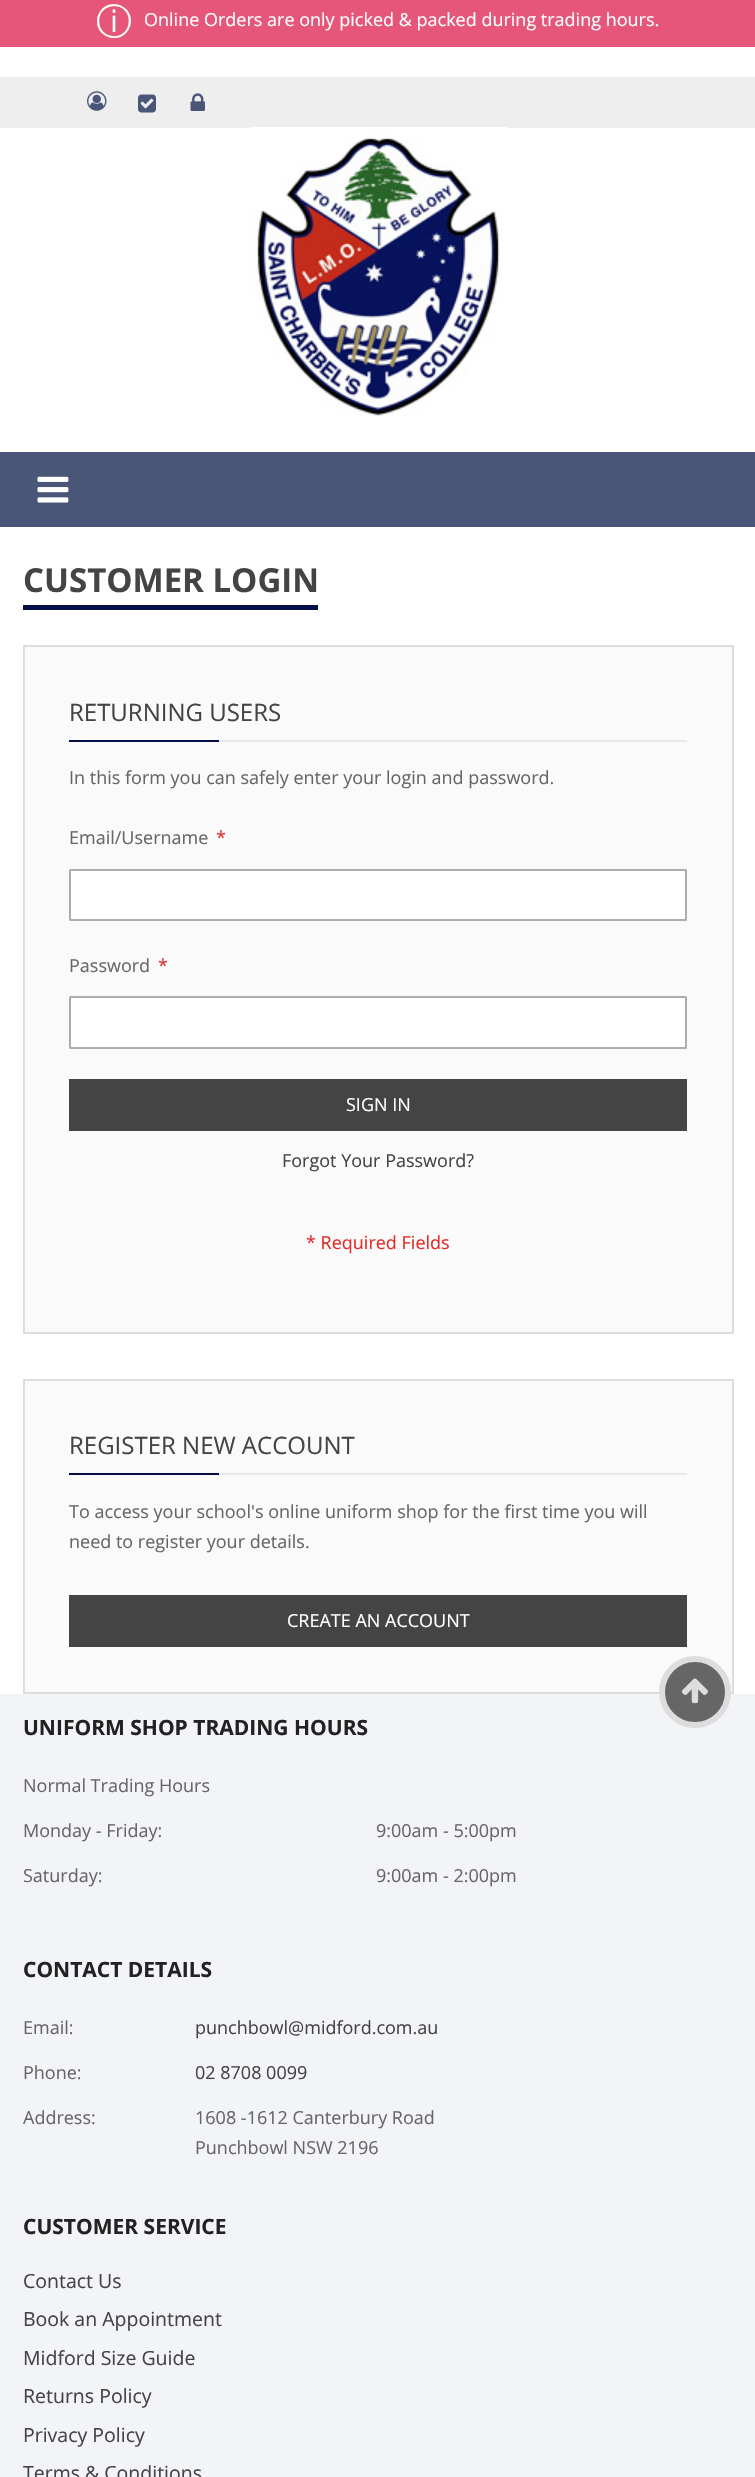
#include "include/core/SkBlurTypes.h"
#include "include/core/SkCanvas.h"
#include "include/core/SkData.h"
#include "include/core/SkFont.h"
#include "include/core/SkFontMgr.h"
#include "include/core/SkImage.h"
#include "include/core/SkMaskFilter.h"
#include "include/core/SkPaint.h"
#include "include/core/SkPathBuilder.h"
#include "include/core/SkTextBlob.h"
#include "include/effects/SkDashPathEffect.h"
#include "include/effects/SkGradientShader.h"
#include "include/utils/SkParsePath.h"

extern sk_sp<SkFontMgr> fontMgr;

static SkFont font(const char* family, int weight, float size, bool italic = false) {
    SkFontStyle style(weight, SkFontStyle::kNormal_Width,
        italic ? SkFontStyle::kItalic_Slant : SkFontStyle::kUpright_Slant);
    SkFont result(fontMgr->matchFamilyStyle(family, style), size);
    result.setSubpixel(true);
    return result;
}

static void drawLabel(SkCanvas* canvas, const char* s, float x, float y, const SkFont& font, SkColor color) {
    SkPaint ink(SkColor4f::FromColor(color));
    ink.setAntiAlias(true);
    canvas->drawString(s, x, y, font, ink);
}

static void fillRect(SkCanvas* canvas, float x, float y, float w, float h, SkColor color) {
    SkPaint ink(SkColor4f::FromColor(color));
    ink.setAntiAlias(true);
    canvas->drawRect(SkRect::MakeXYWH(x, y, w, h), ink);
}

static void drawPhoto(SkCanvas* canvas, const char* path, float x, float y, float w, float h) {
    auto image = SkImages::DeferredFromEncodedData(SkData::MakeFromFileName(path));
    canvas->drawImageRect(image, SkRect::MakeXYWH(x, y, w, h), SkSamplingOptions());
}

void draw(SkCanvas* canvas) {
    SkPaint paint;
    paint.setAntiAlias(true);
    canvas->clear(0xFFFFFFFF);
    fillRect(canvas, 0, 0, 755, 47, 0xFFE6567A);
    SkFont font1 = font("WenQuanYi Zen Hei", 500, 36);
    drawLabel(canvas, "ⓘ", 96, 34, font1, 0xFFFFFFFF);
    SkFont font2 = font("Open Sans", 400, 18);
    drawLabel(canvas, "Online Orders are only picked & packed during trading hours.", 144, 26, font2, 0xFFFFFFFF);
    fillRect(canvas, 0, 77, 755, 51, 0xFFEEEEEE);
    drawPhoto(canvas, "assets/img1.png", 87, 91, 20, 20);
    drawPhoto(canvas, "assets/img2.png", 138, 94, 18, 19);
    drawPhoto(canvas, "assets/img3.png", 190, 93, 15, 18);
    drawPhoto(canvas, "assets/img4.png", 250, 127, 257, 289);
    fillRect(canvas, 0, 452, 755, 75, 0xFF4A5678);
    drawPhoto(canvas, "assets/img5.png", 37, 476, 32, 27);
    SkFont font3 = font("Open Sans", 700, 33);
    drawLabel(canvas, "CUSTOMER LOGIN", 23, 592, font3, 0xFF444444);
    fillRect(canvas, 23, 605, 295, 5, 0xFF040F47);
    paint.setColor(0xFFFAFAFA);
    canvas->drawRect(SkRect::MakeXYWH(24, 646, 709, 687), paint);
    paint.setStroke(true);
    paint.setStrokeWidth(2);
    paint.setColor(0xFFDDDDDD);
    canvas->drawRect(SkRect::MakeXYWH(24, 646, 709, 687), paint);
    fillRect(canvas, 219, 740, 468, 2, 0xFFE8E8E8);
    SkFont font4 = font("Open Sans", 400, 24);
    drawLabel(canvas, "RETURNING USERS", 69, 721, font4, 0xFF444444);
    fillRect(canvas, 69, 740, 150, 2, 0xFF040F47);
    drawLabel(canvas, "In this form you can safely enter your login and password.", 69, 784, font2, 0xFF666666);
    drawLabel(canvas, "Email/Username", 69, 844, font2, 0xFF666666);
    drawLabel(canvas, "*", 216, 844, font2, 0xFFE02B27);
    paint.setStroke(false);
    paint.setColor(0xFFFFFFFF);
    canvas->drawRoundRect(SkRect::MakeXYWH(70, 870, 616, 50), 0.5f, 0.5f, paint);
    paint.setStroke(true);
    paint.setColor(0xFFADADAD);
    canvas->drawRoundRect(SkRect::MakeXYWH(70, 870, 616, 50), 0.5f, 0.5f, paint);
    drawLabel(canvas, "Password", 69, 972, font2, 0xFF666666);
    drawLabel(canvas, "*", 158, 972, font2, 0xFFE02B27);
    paint.setStroke(false);
    paint.setColor(0xFFFFFFFF);
    canvas->drawRoundRect(SkRect::MakeXYWH(70, 997, 616, 51), 0.5f, 0.5f, paint);
    paint.setStroke(true);
    paint.setColor(0xFFADADAD);
    canvas->drawRoundRect(SkRect::MakeXYWH(70, 997, 616, 51), 0.5f, 0.5f, paint);
    fillRect(canvas, 69, 1079, 618, 52, 0xFF444444);
    drawLabel(canvas, "SIGN IN", 346, 1111, font2, 0xFFFFFFFF);
    drawLabel(canvas, "Forgot Your Password?", 282, 1167, font2, 0xFF444444);
    drawLabel(canvas, "* Required Fields", 306, 1249, font2, 0xFFE02B27);
    paint.setStroke(false);
    paint.setColor(0xFFFAFAFA);
    canvas->drawRect(SkRect::MakeXYWH(24, 1380, 709, 313), paint);
    paint.setStroke(true);
    paint.setColor(0xFFDDDDDD);
    canvas->drawRect(SkRect::MakeXYWH(24, 1380, 709, 313), paint);
    fillRect(canvas, 219, 1473, 468, 2, 0xFFE8E8E8);
    drawLabel(canvas, "REGISTER NEW ACCOUNT", 69, 1454, font4, 0xFF444444);
    fillRect(canvas, 69, 1473, 150, 2, 0xFF040F47);
    drawLabel(canvas, "To access your school's online uniform shop for the first time you will", 69, 1518, font2, 0xFF666666);
    drawLabel(canvas, "need to register your details.", 69, 1548, font2, 0xFF666666);
    fillRect(canvas, 69, 1595, 618, 52, 0xFF444444);
    drawLabel(canvas, "CREATE AN ACCOUNT", 287, 1627, font2, 0xFFFFFFFF);
    fillRect(canvas, 0, 1694, 755, 783, 0xFFF3F4F8);
    paint.setStroke(false);
    paint.setColor(0xFF666666);
    canvas->drawCircle(695, 1692, 33, paint);
    paint.setStroke(true);
    paint.setStrokeWidth(6);
    paint.setColor(0xFFDDDDDD);
    canvas->drawCircle(695, 1692, 33, paint);
    drawPhoto(canvas, "assets/img6.png", 681, 1678, 27, 26);
    SkFont font5 = font("Open Sans", 700, 21);
    drawLabel(canvas, "UNIFORM SHOP TRADING HOURS", 23, 1735, font5, 0xFF222222);
    drawLabel(canvas, "Normal Trading Hours", 23, 1792, font2, 0xFF666666);
    drawLabel(canvas, "Monday - Friday:", 23, 1837, font2, 0xFF666666);
    drawLabel(canvas, "9:00am - 5:00pm", 376, 1837, font2, 0xFF666666);
    drawLabel(canvas, "Saturday:", 23, 1882, font2, 0xFF666666);
    drawLabel(canvas, "9:00am - 2:00pm", 376, 1882, font2, 0xFF666666);
    drawLabel(canvas, "CONTACT DETAILS", 23, 1977, font5, 0xFF222222);
    drawLabel(canvas, "Email:", 23, 2034, font2, 0xFF666666);
    drawLabel(canvas, "punchbowl@midford.com.au", 195, 2034, font2, 0xFF444444);
    drawLabel(canvas, "Phone:", 23, 2079, font2, 0xFF666666);
    drawLabel(canvas, "02 8708 0099", 195, 2079, font2, 0xFF444444);
    drawLabel(canvas, "Address:", 23, 2124, font2, 0xFF666666);
    drawLabel(canvas, "1608 -1612 Canterbury Road", 195, 2124, font2, 0xFF666666);
    drawLabel(canvas, "Punchbowl NSW 2196", 195, 2154, font2, 0xFF666666);
    drawLabel(canvas, "CUSTOMER SERVICE", 23, 2234, font5, 0xFF222222);
    SkFont font6 = font("Open Sans", 400, 19.5f);
    drawLabel(canvas, "Contact Us", 23, 2288, font6, 0xFF444444);
    drawLabel(canvas, "Book an Appointment", 23, 2326, font6, 0xFF444444);
    drawLabel(canvas, "Midford Size Guide", 23, 2365, font6, 0xFF444444);
    drawLabel(canvas, "Returns Policy", 23, 2403, font6, 0xFF444444);
    drawLabel(canvas, "Privacy Policy", 23, 2442, font6, 0xFF444444);
    drawLabel(canvas, "Terms & Conditions", 23, 2480, font6, 0xFF444444);
}
